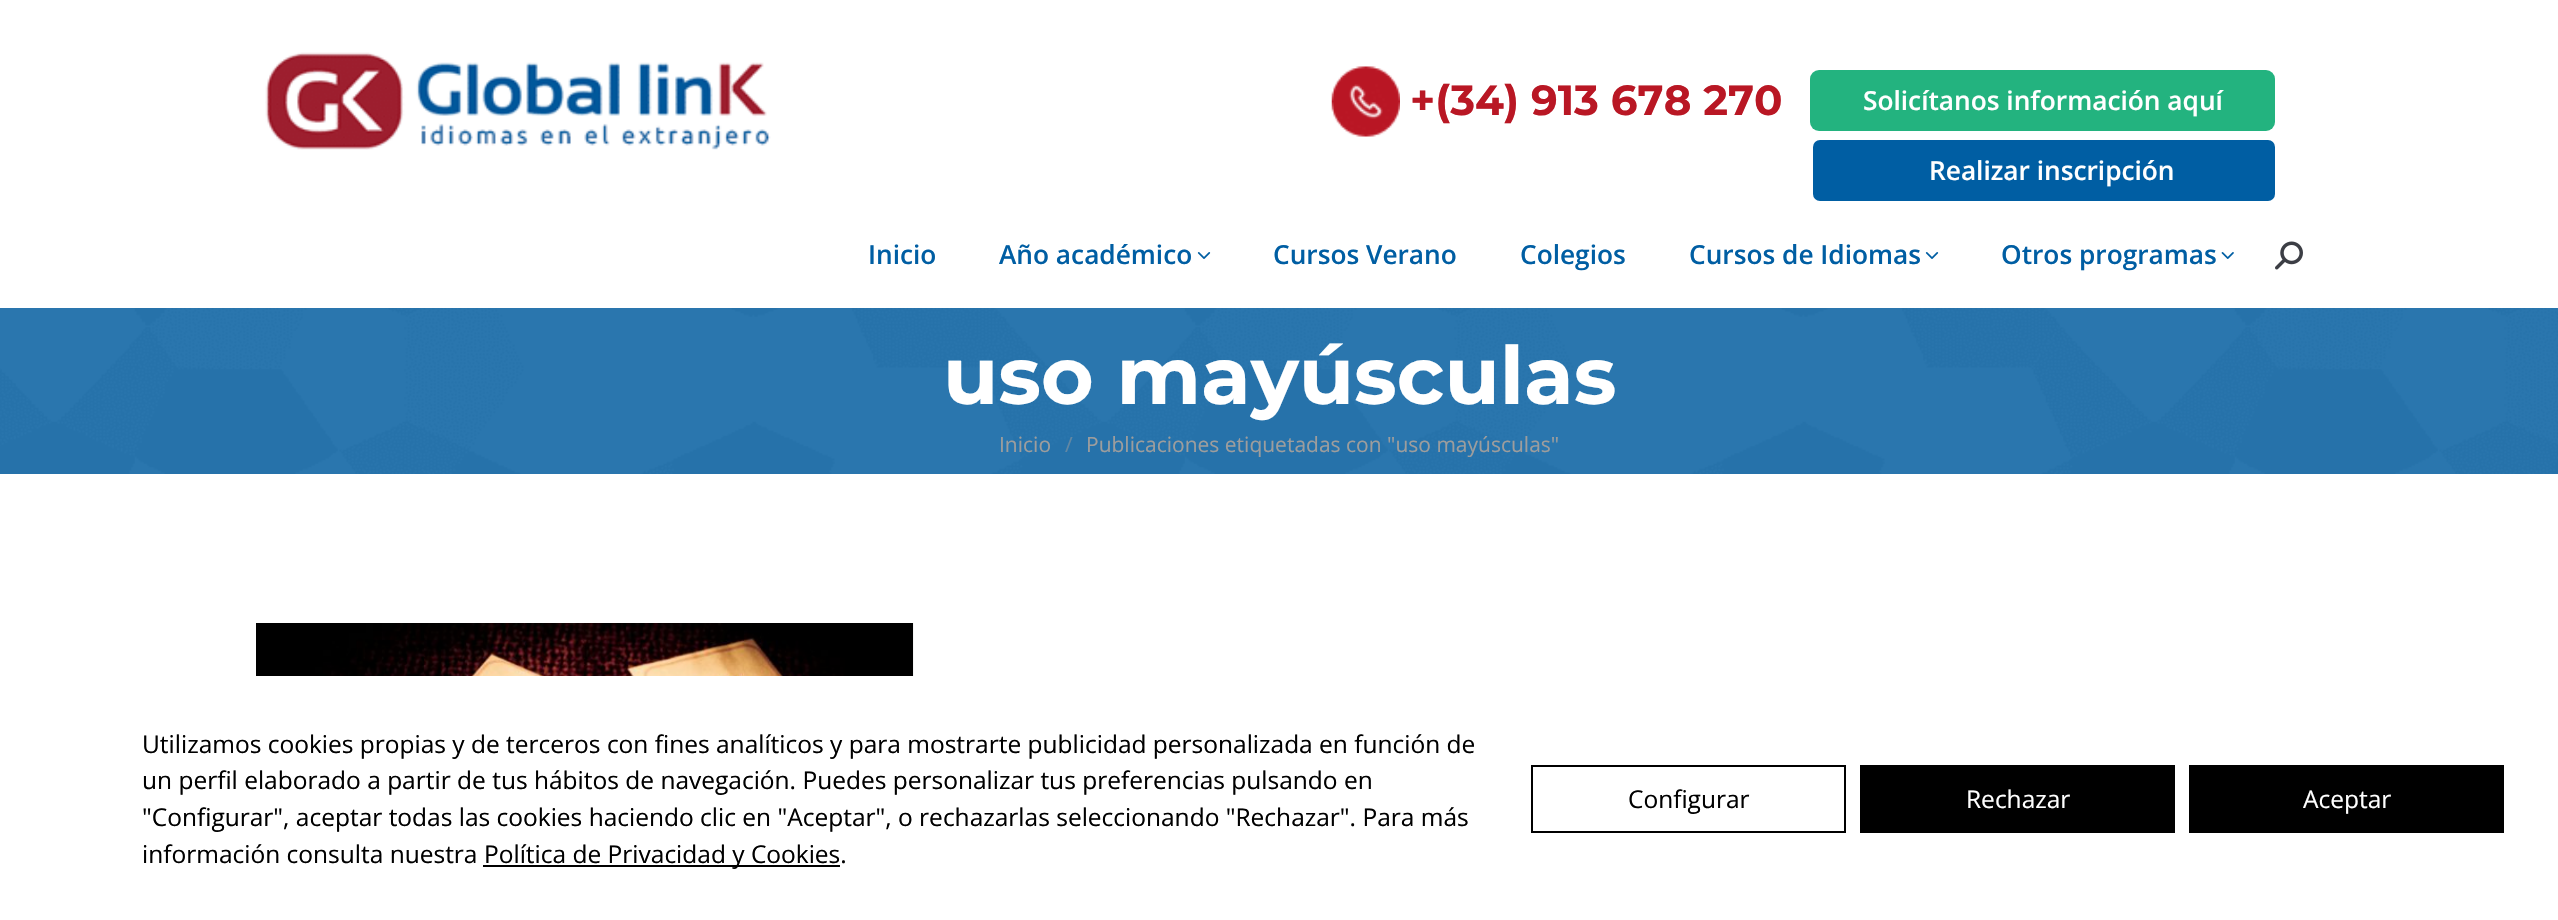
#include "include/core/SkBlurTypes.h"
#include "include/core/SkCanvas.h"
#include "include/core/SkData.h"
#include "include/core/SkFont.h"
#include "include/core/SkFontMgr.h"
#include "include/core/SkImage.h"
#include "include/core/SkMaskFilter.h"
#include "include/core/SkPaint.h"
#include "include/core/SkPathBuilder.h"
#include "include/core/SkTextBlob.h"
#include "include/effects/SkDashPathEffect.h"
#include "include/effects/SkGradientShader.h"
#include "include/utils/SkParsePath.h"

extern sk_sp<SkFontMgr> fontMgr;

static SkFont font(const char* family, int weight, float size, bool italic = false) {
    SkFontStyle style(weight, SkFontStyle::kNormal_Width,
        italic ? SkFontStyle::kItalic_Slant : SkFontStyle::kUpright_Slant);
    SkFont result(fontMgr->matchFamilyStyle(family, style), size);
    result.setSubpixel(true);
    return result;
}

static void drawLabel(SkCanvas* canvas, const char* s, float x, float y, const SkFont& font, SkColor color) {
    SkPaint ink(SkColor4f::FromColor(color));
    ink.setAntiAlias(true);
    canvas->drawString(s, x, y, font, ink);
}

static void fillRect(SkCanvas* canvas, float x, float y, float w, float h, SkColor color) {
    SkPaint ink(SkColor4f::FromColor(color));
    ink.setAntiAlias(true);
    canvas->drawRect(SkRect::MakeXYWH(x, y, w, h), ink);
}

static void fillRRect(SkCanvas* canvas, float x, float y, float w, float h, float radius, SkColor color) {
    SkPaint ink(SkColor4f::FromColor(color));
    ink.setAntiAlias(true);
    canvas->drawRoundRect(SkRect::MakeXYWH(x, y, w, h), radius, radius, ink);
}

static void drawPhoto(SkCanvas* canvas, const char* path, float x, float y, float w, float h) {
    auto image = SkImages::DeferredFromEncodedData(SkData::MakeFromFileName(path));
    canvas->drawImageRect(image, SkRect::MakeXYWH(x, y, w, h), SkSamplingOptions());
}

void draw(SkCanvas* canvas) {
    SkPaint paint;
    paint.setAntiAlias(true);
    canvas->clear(0xFFFFFFFF);
    drawPhoto(canvas, "assets/img1.png", 265, 52, 506, 98);
    drawPhoto(canvas, "assets/img2.png", 1331, 66, 69, 71);
    SkFont font1 = font("Montserrat", 700, 42);
    drawLabel(canvas, "+(34) 913 678 270", 1410, 115, font1, 0xFFB91724);
    fillRRect(canvas, 1810, 70, 465, 61, 9, 0xFF23B37F);
    SkFont font2 = font("Open Sans", 600, 26.25f);
    drawLabel(canvas, "Solicítanos información aquí", 1863, 110, font2, 0xFFFFFFFF);
    fillRRect(canvas, 1813, 140, 462, 61, 7, 0xFF005EA3);
    drawLabel(canvas, "Realizar inscripción", 1929, 180, font2, 0xFFFFFFFF);
    drawLabel(canvas, "Inicio", 868, 264, font2, 0xFF005EA3);
    drawLabel(canvas, "Año académico", 999, 264, font2, 0xFF005EA3);
    drawPhoto(canvas, "assets/img3.png", 1197, 252, 14, 7);
    drawLabel(canvas, "Cursos Verano", 1273, 264, font2, 0xFF005EA3);
    drawLabel(canvas, "Colegios", 1520, 264, font2, 0xFF005EA3);
    drawLabel(canvas, "Cursos de Idiomas", 1689, 264, font2, 0xFF005EA3);
    drawPhoto(canvas, "assets/img3.png", 1925, 252, 14, 7);
    drawLabel(canvas, "Otros programas", 2001, 264, font2, 0xFF005EA3);
    drawPhoto(canvas, "assets/img4.png", 2221, 252, 13, 7);
    drawPhoto(canvas, "assets/img5.png", 2275, 241, 28, 29);
    fillRect(canvas, 0, 308, 2558, 166, 0xFF005EA4);
    drawPhoto(canvas, "assets/img6.png", 0, 308, 2558, 166);
    SkFont font3 = font("Montserrat", 700, 80.5f);
    drawLabel(canvas, "uso mayúsculas", 943, 404, font3, 0xFFFFFFFF);
    SkFont font4 = font("Open Sans", 400, 21);
    drawLabel(canvas, "Inicio", 999, 452, font4, 0xFF9D9D9D);
    drawLabel(canvas, "/", 1065, 452, font4, 0xFF6287A3);
    drawLabel(canvas, "Publicaciones etiquetadas con \"uso mayúsculas\"", 1086, 452, font4, 0xFF9D9D9D);
    fillRect(canvas, 913, 623, 1, 53, 0xFFF4F5F5);
    drawPhoto(canvas, "assets/img7.png", 256, 623, 657, 53);
    SkFont font5 = font("Open Sans", 400, 24.5f);
    drawLabel(canvas, "Utilizamos cookies propias y de terceros con fines analíticos y para mostrarte publicidad personalizada en función de", 142, 753, font5, 0xFF000000);
    drawLabel(canvas, "un perfil elaborado a partir de tus hábitos de navegación. Puedes personalizar tus preferencias pulsando en", 142, 789, font5, 0xFF000000);
    drawLabel(canvas, "\"Configurar\", aceptar todas las cookies haciendo clic en \"Aceptar\", o rechazarlas seleccionando \"Rechazar\". Para más", 142, 826, font5, 0xFF000000);
    drawLabel(canvas, "información consulta nuestra", 142, 863, font5, 0xFF000000);
    fillRect(canvas, 483, 865, 357, 2, 0xFF000000);
    drawLabel(canvas, "Política de Privacidad y Cookies.", 484, 863, font5, 0xFF000000);
    paint.setStroke(true);
    paint.setStrokeWidth(2);
    paint.setColor(0xFF000000);
    canvas->drawRect(SkRect::MakeXYWH(1532, 766, 313, 66), paint);
    drawLabel(canvas, "Configurar", 1628, 808, font5, 0xFF000000);
    fillRect(canvas, 1860, 765, 315, 68, 0xFF000000);
    drawLabel(canvas, "Rechazar", 1966, 808, font5, 0xFFFFFFFF);
    fillRect(canvas, 2189, 765, 315, 68, 0xFF000000);
    drawLabel(canvas, "Aceptar", 2303, 808, font5, 0xFFFFFFFF);
}
